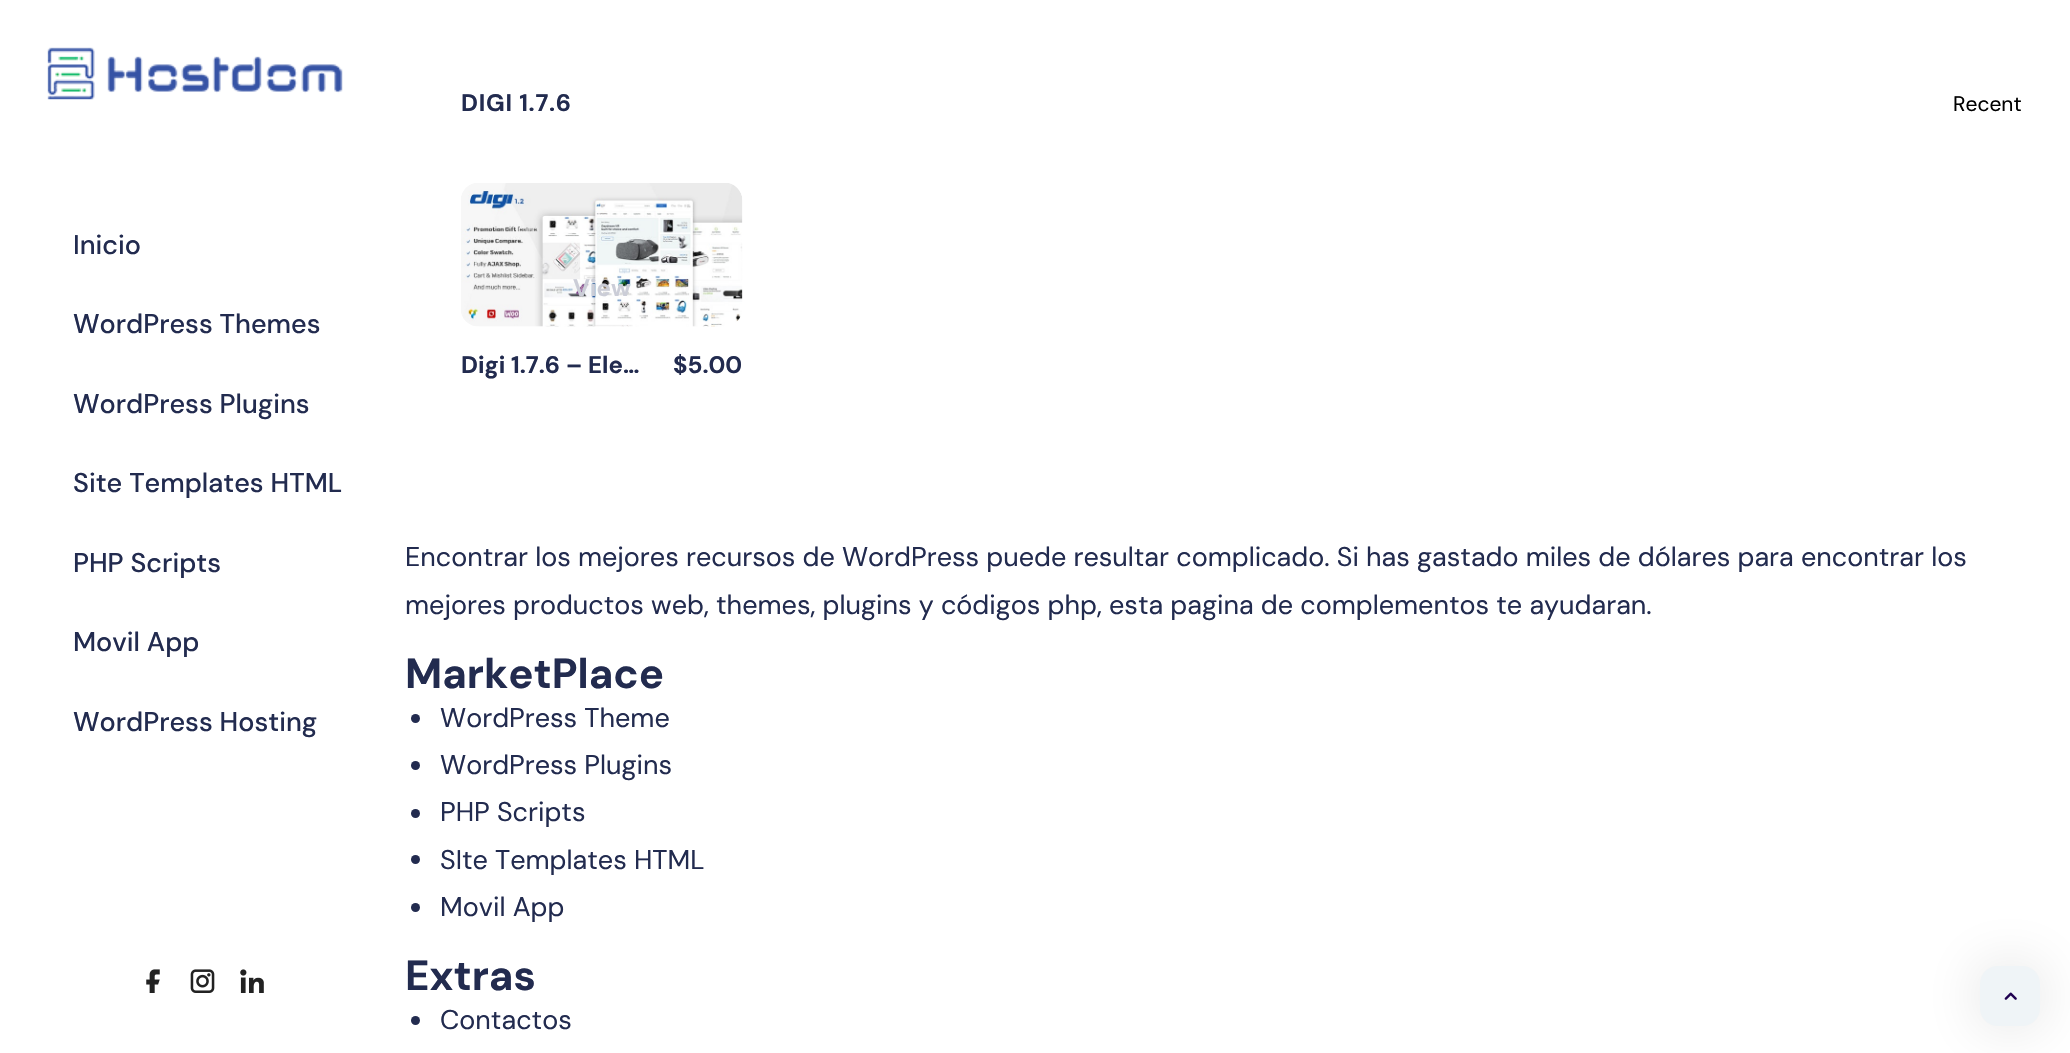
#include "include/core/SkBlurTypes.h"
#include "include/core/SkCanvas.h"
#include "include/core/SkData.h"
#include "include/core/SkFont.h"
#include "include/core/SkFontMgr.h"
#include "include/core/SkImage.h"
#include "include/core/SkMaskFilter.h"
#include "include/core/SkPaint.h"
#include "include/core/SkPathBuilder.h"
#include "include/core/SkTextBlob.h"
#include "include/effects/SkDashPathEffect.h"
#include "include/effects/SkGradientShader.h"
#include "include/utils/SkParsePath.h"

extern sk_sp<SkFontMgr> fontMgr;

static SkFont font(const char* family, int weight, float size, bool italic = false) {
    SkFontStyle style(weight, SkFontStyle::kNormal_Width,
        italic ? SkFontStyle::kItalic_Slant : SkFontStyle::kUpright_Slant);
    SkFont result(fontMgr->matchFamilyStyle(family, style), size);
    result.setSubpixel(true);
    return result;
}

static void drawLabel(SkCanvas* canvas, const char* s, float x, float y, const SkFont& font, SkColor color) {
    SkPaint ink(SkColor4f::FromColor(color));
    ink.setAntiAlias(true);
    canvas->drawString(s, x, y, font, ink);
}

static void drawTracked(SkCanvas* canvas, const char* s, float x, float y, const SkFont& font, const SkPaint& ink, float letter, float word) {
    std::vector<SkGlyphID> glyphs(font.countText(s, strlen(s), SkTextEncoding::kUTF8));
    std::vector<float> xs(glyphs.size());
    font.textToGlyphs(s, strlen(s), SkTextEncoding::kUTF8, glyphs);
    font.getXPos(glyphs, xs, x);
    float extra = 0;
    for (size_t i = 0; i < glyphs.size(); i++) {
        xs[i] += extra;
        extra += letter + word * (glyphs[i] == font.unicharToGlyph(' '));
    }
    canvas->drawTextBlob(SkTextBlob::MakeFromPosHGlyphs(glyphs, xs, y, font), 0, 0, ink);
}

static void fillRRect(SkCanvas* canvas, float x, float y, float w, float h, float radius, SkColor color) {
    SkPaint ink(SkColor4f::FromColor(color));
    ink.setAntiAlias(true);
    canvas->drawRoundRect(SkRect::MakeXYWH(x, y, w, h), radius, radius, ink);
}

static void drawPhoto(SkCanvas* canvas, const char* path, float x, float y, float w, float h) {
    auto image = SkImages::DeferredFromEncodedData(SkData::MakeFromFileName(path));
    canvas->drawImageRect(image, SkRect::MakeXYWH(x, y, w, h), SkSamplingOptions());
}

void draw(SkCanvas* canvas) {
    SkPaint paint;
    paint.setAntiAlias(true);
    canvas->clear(0xFFFFFFFF);
    drawPhoto(canvas, "assets/img1.png", 47, 47, 296, 53);
    SkFont font1 = font("DM Sans", 500, 27);
    drawLabel(canvas, "Inicio", 73, 254, font1, 0xFF222B4F);
    drawLabel(canvas, "WordPress Themes", 73, 333, font1, 0xFF222B4F);
    drawLabel(canvas, "WordPress Plugins", 73, 413, font1, 0xFF222B4F);
    drawLabel(canvas, "Site Templates HTML", 73, 492, font1, 0xFF222B4F);
    drawLabel(canvas, "PHP Scripts", 73, 572, font1, 0xFF222B4F);
    drawLabel(canvas, "Movil App", 73, 651, font1, 0xFF222B4F);
    drawLabel(canvas, "WordPress Hosting", 73, 731, font1, 0xFF222B4F);
    drawPhoto(canvas, "assets/img2.png", 146, 969, 14, 24);
    drawPhoto(canvas, "assets/img3.png", 190, 969, 25, 24);
    drawPhoto(canvas, "assets/img4.png", 240, 969, 24, 24);
    SkFont font2 = font("DM Sans", 700, 24);
    paint.setColor(0xFF222B4F);
    drawTracked(canvas, "DIGI 1.7.6", 461, 111, font2, paint, 0.75f, 0);
    SkFont font3 = font("DM Sans", 400, 21);
    drawLabel(canvas, "Recent", 1953, 111, font3, 0xFF000000);
    drawPhoto(canvas, "assets/img5.png", 461, 183, 282, 144);
    drawLabel(canvas, "View", 573, 296, font2, 0xFFCBCDD7);
    drawLabel(canvas, "Digi 1.7.6 – Ele…", 461, 373, font2, 0xFF222B4F);
    drawLabel(canvas, "$5.00", 673, 373, font2, 0xFF222B4F);
    SkFont font4 = font("DM Sans", 400, 27);
    drawLabel(canvas, "Encontrar los mejores recursos de WordPress puede resultar complicado. Si has gastado miles de dólares para encontrar los", 405, 566, font4, 0xFF222B4F);
    drawLabel(canvas, "mejores productos web, themes, plugins y códigos php, esta pagina de complementos te ayudaran.", 405, 614, font4, 0xFF222B4F);
    SkFont font5 = font("DM Sans", 700, 42);
    drawLabel(canvas, "MarketPlace", 405, 688, font5, 0xFF222B4F);
    canvas->drawCircle(415.5f, 718.5f, 4.5f, paint);
    drawLabel(canvas, "WordPress Theme", 440, 727, font4, 0xFF222B4F);
    canvas->drawCircle(415.5f, 765.5f, 4.5f, paint);
    drawLabel(canvas, "WordPress Plugins", 440, 774, font4, 0xFF222B4F);
    canvas->drawCircle(415.5f, 813.5f, 4.5f, paint);
    drawLabel(canvas, "PHP Scripts", 440, 821, font4, 0xFF222B4F);
    canvas->drawCircle(415.5f, 859.5f, 4.5f, paint);
    drawLabel(canvas, "SIte Templates HTML", 440, 869, font4, 0xFF222B4F);
    canvas->drawCircle(415.5f, 907.5f, 4.5f, paint);
    drawLabel(canvas, "Movil App", 440, 916, font4, 0xFF222B4F);
    drawLabel(canvas, "Extras", 405, 990, font5, 0xFF222B4F);
    canvas->drawCircle(415.5f, 1020.5f, 4.5f, paint);
    drawLabel(canvas, "Contactos", 440, 1029, font4, 0xFF222B4F);
    paint.setColor(0x210A0A19);
    paint.setMaskFilter(SkMaskFilter::MakeBlur(kNormal_SkBlurStyle, 30));
    canvas->drawRoundRect(SkRect::MakeXYWH(1980, 966, 60, 60), 18, 18, paint);
    paint.setMaskFilter(nullptr);
    fillRRect(canvas, 1980, 966, 60, 60, 18, 0xFFEFF4F7);
    drawPhoto(canvas, "assets/img6.png", 2004, 992, 13, 8);
}
